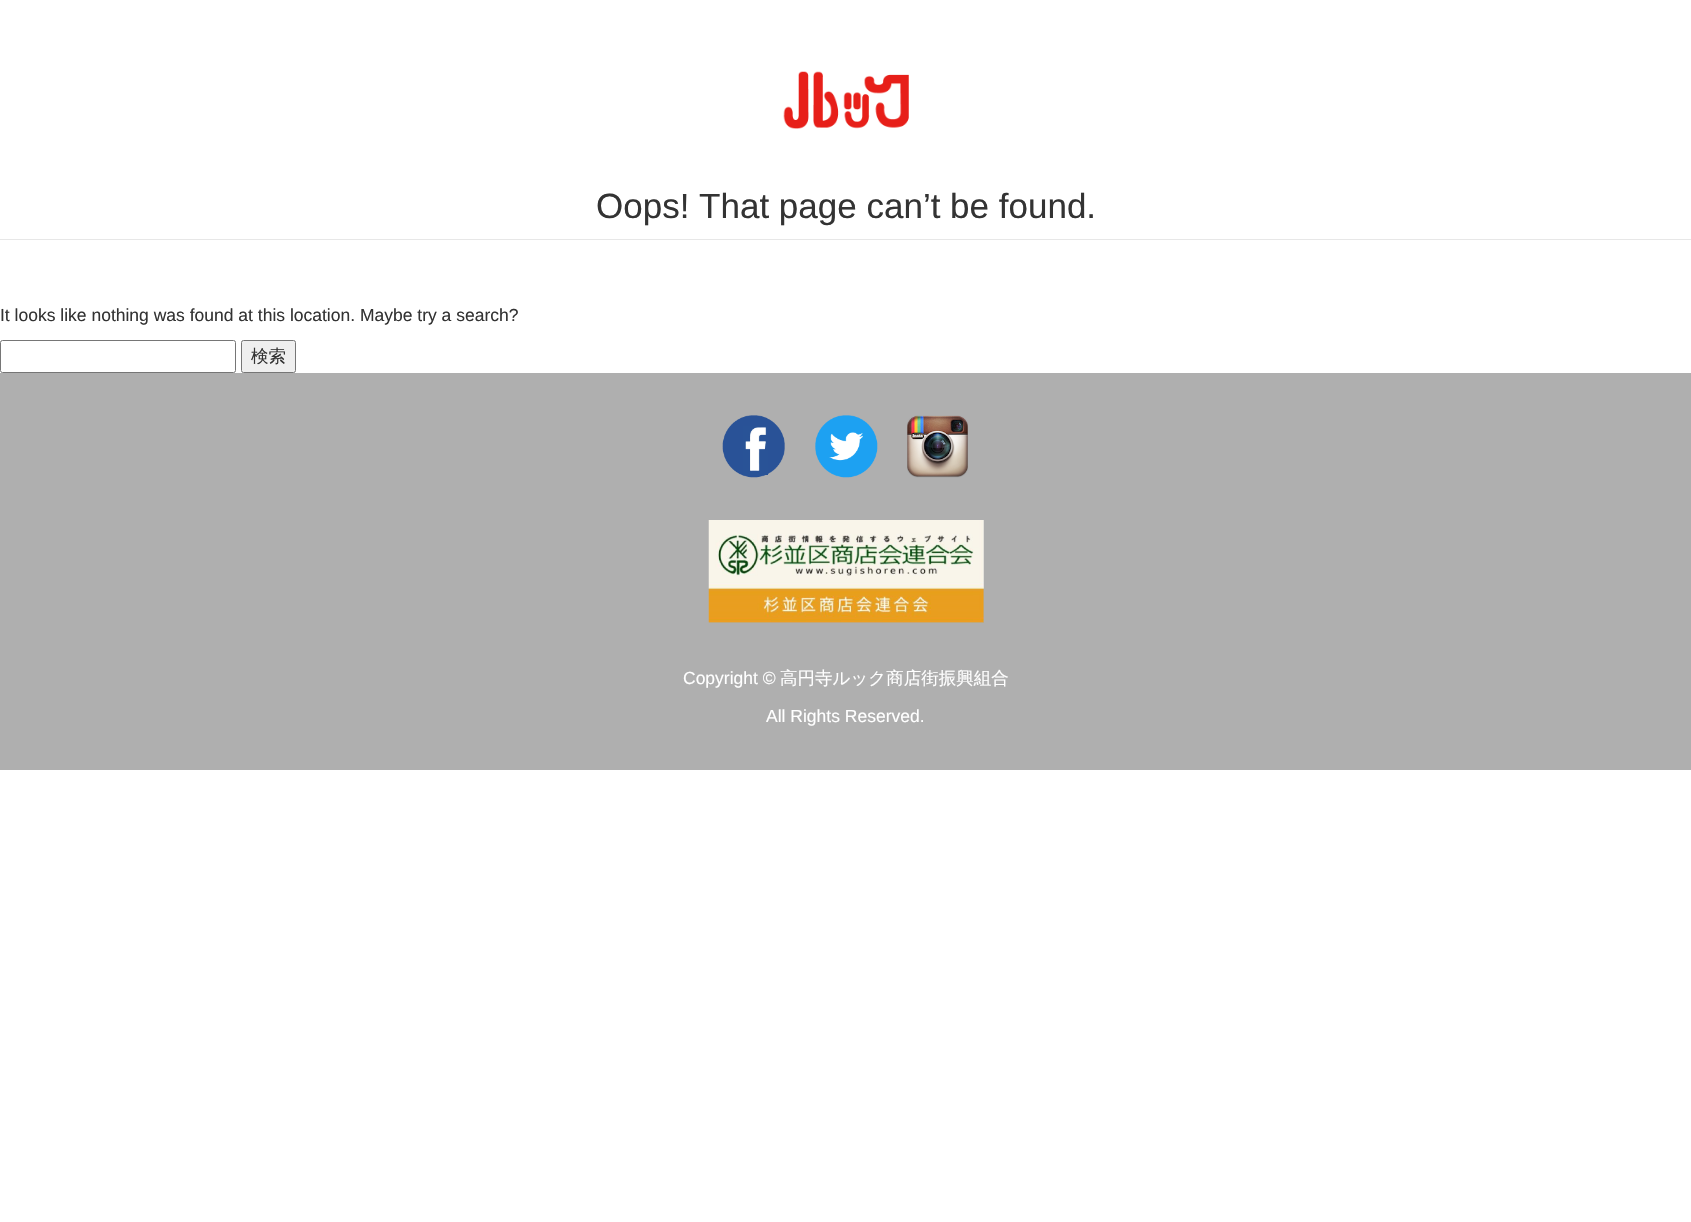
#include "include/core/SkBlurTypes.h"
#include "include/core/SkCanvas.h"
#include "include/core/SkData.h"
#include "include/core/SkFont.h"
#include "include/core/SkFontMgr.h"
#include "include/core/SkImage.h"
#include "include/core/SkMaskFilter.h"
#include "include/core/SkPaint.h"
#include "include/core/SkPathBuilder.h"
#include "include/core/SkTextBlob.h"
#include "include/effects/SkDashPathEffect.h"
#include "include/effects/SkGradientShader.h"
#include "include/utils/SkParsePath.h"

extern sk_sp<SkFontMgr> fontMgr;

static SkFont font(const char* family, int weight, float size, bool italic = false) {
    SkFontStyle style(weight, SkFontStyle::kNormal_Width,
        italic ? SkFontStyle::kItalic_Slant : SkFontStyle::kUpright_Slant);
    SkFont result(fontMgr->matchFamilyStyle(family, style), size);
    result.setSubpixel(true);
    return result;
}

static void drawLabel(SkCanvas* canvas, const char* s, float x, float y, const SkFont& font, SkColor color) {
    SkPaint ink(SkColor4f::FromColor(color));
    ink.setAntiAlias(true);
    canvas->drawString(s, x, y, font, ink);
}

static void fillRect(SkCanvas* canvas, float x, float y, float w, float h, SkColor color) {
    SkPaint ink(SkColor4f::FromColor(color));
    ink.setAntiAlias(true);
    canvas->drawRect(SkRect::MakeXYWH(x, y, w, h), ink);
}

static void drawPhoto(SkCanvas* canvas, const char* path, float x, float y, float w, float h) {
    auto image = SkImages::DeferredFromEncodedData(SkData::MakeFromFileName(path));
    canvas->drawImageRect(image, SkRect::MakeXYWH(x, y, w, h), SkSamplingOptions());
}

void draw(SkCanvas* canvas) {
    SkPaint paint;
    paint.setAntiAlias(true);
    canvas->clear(0xFFFFFFFF);
    drawPhoto(canvas, "assets/img1.png", 783, 71, 126, 58);
    fillRect(canvas, 0, 239, 1691, 1, 0xFFE7E7E7);
    SkFont font1 = font("Liberation Sans", 400, 35);
    drawLabel(canvas, "Oops! That page can’t be found.", 596, 218, font1, 0xFF333333);
    SkFont font2 = font("Liberation Sans", 400, 17.5f);
    drawLabel(canvas, "It looks like nothing was found at this location. Maybe try a search?", 0, 321, font2, 0xFF333333);
    paint.setStroke(true);
    paint.setStrokeWidth(1);
    paint.setColor(0xFF767676);
    canvas->drawRoundRect(SkRect::MakeXYWH(0.5f, 340.5f, 235, 32), 2, 2, paint);
    paint.setStroke(false);
    paint.setColor(0xFFEFEFEF);
    canvas->drawRoundRect(SkRect::MakeXYWH(241.5f, 340.5f, 54, 32), 2, 2, paint);
    paint.setStroke(true);
    paint.setColor(0xFF767676);
    canvas->drawRoundRect(SkRect::MakeXYWH(241.5f, 340.5f, 54, 32), 2, 2, paint);
    SkFont font3 = font("WenQuanYi Zen Hei", 500, 17.5f);
    drawLabel(canvas, "検索", 251, 362, font3, 0xFF333333);
    fillRect(canvas, 0, 373, 1691, 397, 0xFFAFAFAF);
    drawPhoto(canvas, "assets/img2.png", 722, 415, 63, 63);
    drawPhoto(canvas, "assets/img3.png", 815, 415, 63, 63);
    drawPhoto(canvas, "assets/img4.png", 907, 415, 61, 63);
    drawPhoto(canvas, "assets/img5.png", 708, 520, 276, 103);
    drawLabel(canvas, "Copyright ©", 683, 684, font2, 0xFFFFFFFF);
    drawLabel(canvas, "高円寺ルック商店街振興組合", 780, 684, font3, 0xFFFFFFFF);
    drawLabel(canvas, "All Rights Reserved.", 766, 722, font2, 0xFFFFFFFF);
}
